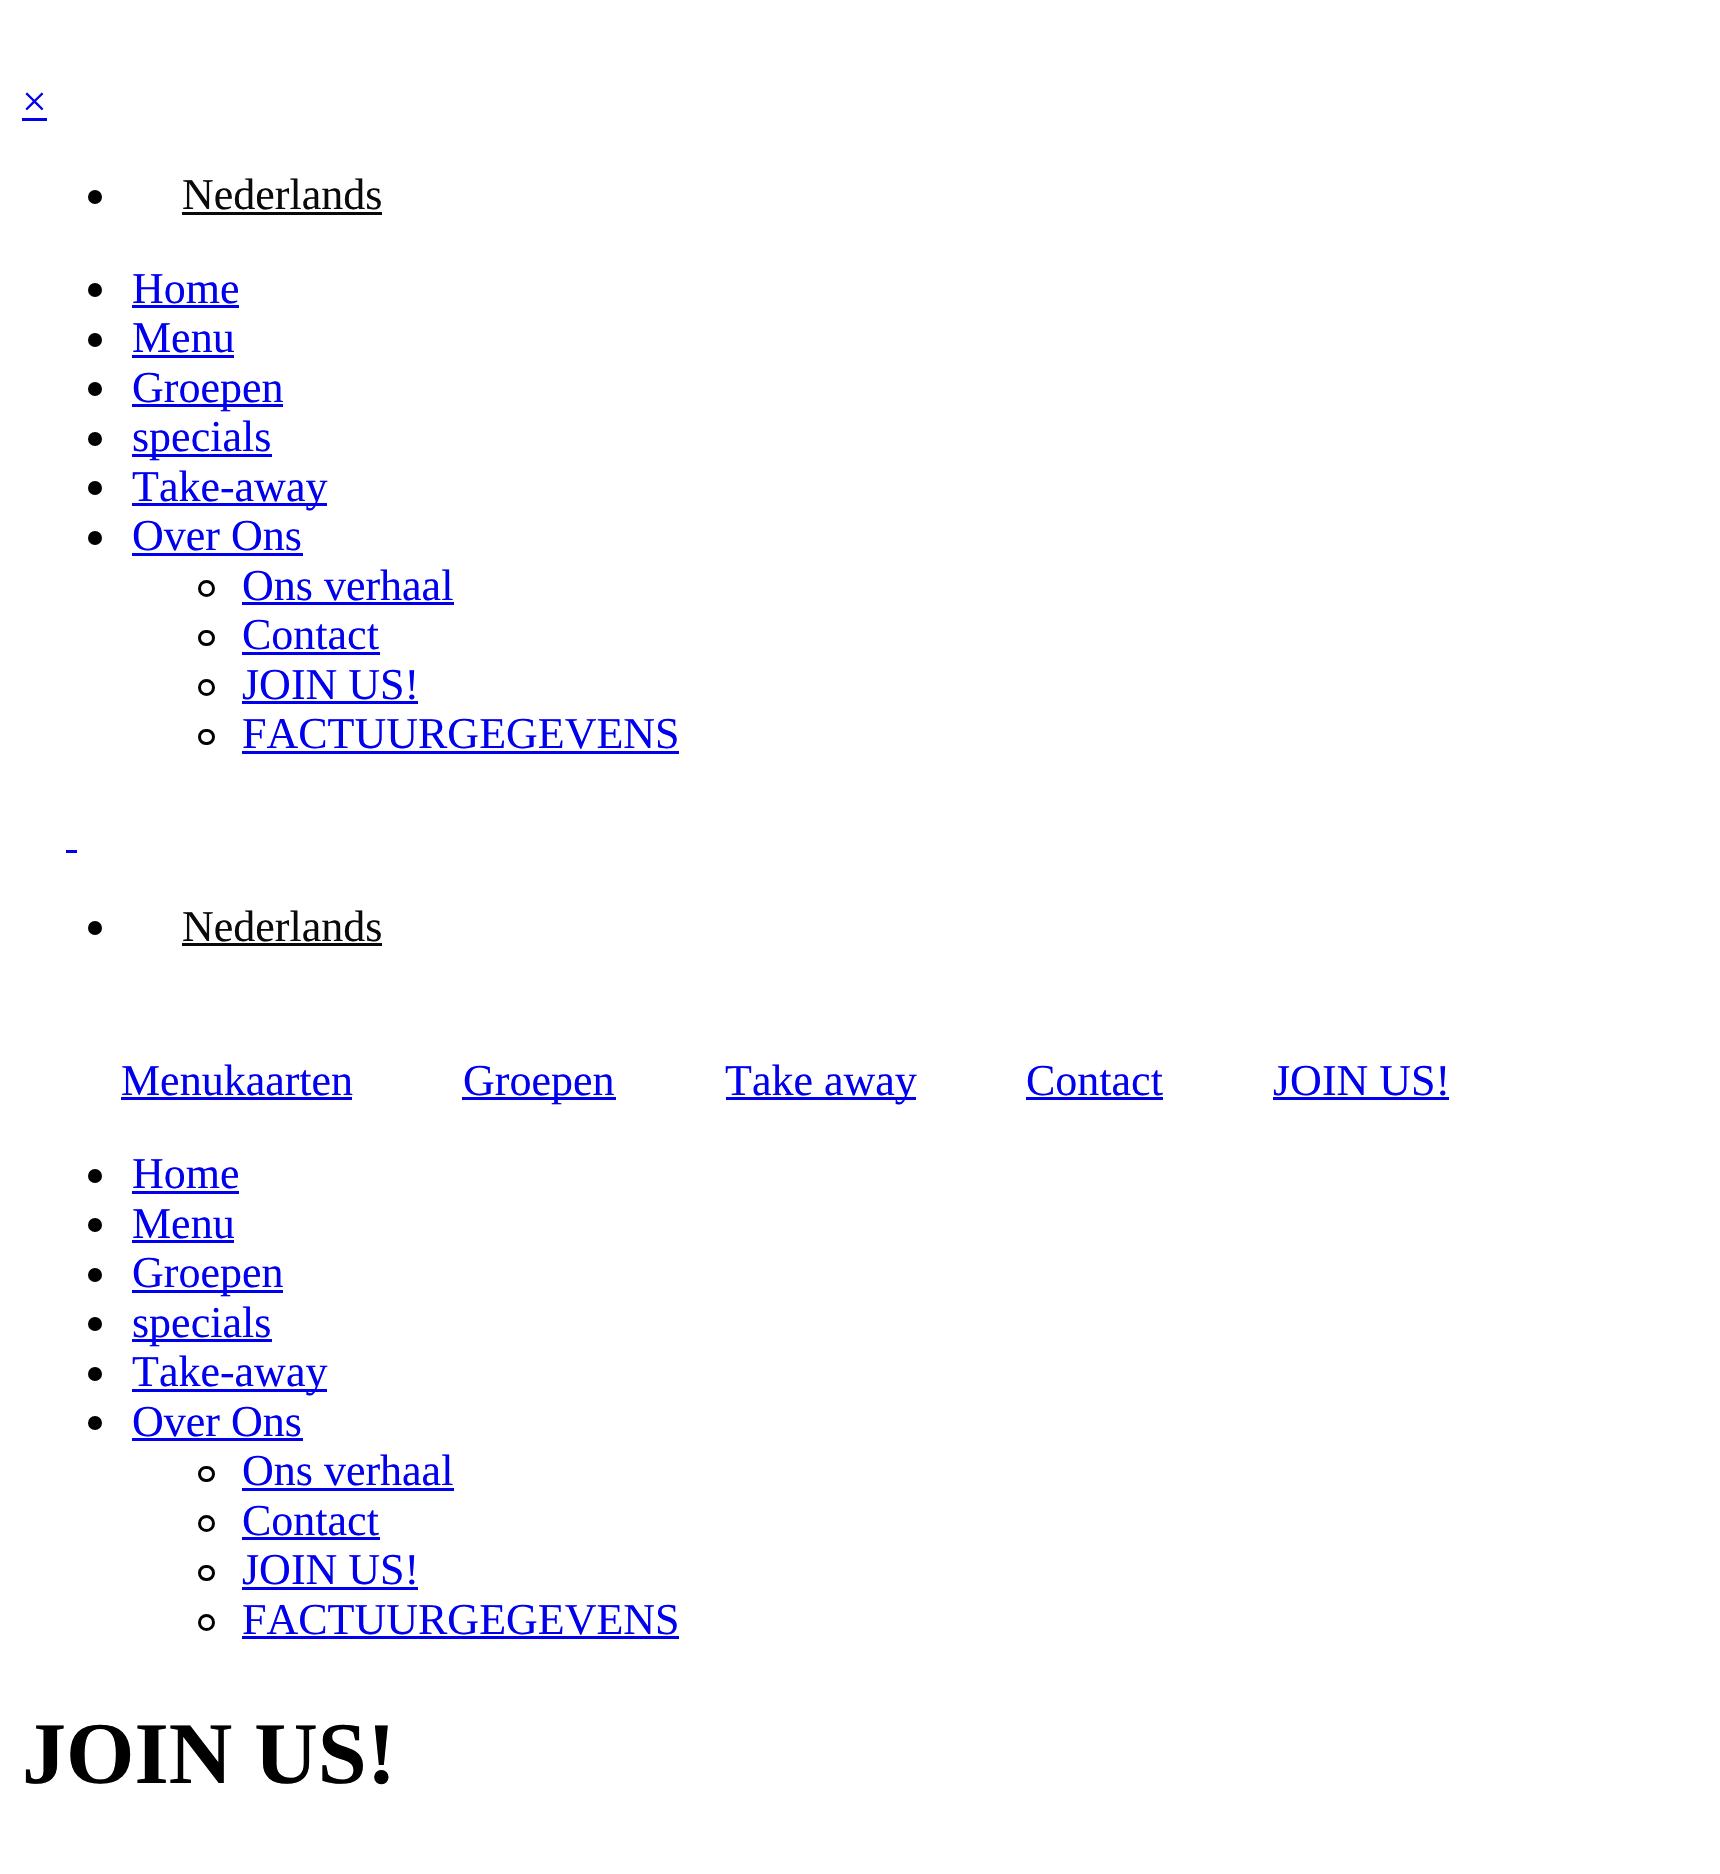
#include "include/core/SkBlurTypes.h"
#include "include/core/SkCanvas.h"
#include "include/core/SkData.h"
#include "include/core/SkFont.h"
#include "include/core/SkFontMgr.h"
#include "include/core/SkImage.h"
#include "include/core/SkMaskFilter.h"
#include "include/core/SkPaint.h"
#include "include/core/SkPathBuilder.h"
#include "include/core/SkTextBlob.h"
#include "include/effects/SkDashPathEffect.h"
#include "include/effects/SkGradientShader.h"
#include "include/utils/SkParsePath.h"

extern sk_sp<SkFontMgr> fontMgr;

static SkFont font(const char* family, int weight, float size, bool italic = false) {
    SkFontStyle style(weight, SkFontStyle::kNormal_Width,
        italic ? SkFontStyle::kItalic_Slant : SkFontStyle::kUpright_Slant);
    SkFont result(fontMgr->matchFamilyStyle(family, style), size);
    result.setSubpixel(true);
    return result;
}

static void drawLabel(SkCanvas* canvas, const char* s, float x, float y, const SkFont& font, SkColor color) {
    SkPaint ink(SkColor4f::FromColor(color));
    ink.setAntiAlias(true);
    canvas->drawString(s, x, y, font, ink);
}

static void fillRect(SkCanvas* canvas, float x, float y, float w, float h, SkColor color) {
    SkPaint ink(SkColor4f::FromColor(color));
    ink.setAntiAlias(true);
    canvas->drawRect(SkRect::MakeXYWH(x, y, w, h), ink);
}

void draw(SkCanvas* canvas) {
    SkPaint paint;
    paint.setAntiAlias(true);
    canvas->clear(0xFFFFFFFF);
    SkFont font1 = font("Liberation Serif", 400, 44);
    drawLabel(canvas, "×", 22, 116, font1, 0xFF0000EE);
    fillRect(canvas, 22, 118, 25, 3, 0xFF0000EE);
    paint.setColor(0xFF000000);
    canvas->drawCircle(95, 197, 7, paint);
    drawLabel(canvas, "Nederlands", 182, 209, font1, 0xFF0A0A0A);
    fillRect(canvas, 182, 212, 200, 3, 0xFF0A0A0A);
    canvas->drawCircle(95, 290, 7, paint);
    drawLabel(canvas, "Home", 132, 303, font1, 0xFF0000EE);
    fillRect(canvas, 132, 305, 107, 3, 0xFF0000EE);
    canvas->drawCircle(95, 340, 7, paint);
    drawLabel(canvas, "Menu", 132, 352, font1, 0xFF0000EE);
    fillRect(canvas, 132, 355, 102, 3, 0xFF0000EE);
    canvas->drawCircle(95, 389, 7, paint);
    fillRect(canvas, 132, 404, 151, 3, 0xFF0000EE);
    drawLabel(canvas, "Groepen", 132, 402, font1, 0xFF0000EE);
    canvas->drawCircle(95, 439, 7, paint);
    fillRect(canvas, 132, 454, 140, 3, 0xFF0000EE);
    drawLabel(canvas, "specials", 132, 451, font1, 0xFF0000EE);
    canvas->drawCircle(95, 488, 7, paint);
    fillRect(canvas, 132, 503, 195, 3, 0xFF0000EE);
    drawLabel(canvas, "Take-away", 132, 501, font1, 0xFF0000EE);
    canvas->drawCircle(95, 538, 7, paint);
    drawLabel(canvas, "Over Ons", 132, 550, font1, 0xFF0000EE);
    fillRect(canvas, 132, 553, 171, 3, 0xFF0000EE);
    paint.setStroke(true);
    paint.setStrokeWidth(3);
    canvas->drawCircle(206.5f, 588.5f, 7, paint);
    drawLabel(canvas, "Ons verhaal", 242, 600, font1, 0xFF0000EE);
    fillRect(canvas, 242, 602, 212, 3, 0xFF0000EE);
    canvas->drawRoundRect(SkRect::MakeXYWH(199.5f, 631.5f, 14, 13), 6.5f, 6.5f, paint);
    drawLabel(canvas, "Contact", 242, 649, font1, 0xFF0000EE);
    fillRect(canvas, 242, 652, 138, 3, 0xFF0000EE);
    canvas->drawCircle(206.5f, 687.5f, 7, paint);
    drawLabel(canvas, "JOIN US!", 242, 699, font1, 0xFF0000EE);
    fillRect(canvas, 242, 701, 176, 3, 0xFF0000EE);
    canvas->drawRoundRect(SkRect::MakeXYWH(199.5f, 730.5f, 14, 13), 6.5f, 6.5f, paint);
    drawLabel(canvas, "FACTUURGEGEVENS", 242, 748, font1, 0xFF0000EE);
    fillRect(canvas, 242, 751, 437, 3, 0xFF0000EE);
    fillRect(canvas, 66, 850, 11, 3, 0xFF0000EE);
    paint.setStroke(false);
    canvas->drawCircle(95, 928, 7, paint);
    drawLabel(canvas, "Nederlands", 182, 941, font1, 0xFF0A0A0A);
    fillRect(canvas, 182, 943, 200, 3, 0xFF0A0A0A);
    drawLabel(canvas, "Menukaarten", 121, 1095, font1, 0xFF0000EE);
    fillRect(canvas, 121, 1097, 231, 3, 0xFF0000EE);
    fillRect(canvas, 462, 1097, 154, 3, 0xFF0000EE);
    drawLabel(canvas, "Groepen", 463, 1095, font1, 0xFF0000EE);
    fillRect(canvas, 726, 1097, 190, 3, 0xFF0000EE);
    drawLabel(canvas, "Take away", 725, 1095, font1, 0xFF0000EE);
    drawLabel(canvas, "Contact", 1026, 1095, font1, 0xFF0000EE);
    fillRect(canvas, 1026, 1097, 137, 3, 0xFF0000EE);
    drawLabel(canvas, "JOIN US!", 1273, 1095, font1, 0xFF0000EE);
    fillRect(canvas, 1273, 1097, 176, 3, 0xFF0000EE);
    canvas->drawCircle(95, 1176, 7, paint);
    drawLabel(canvas, "Home", 132, 1188, font1, 0xFF0000EE);
    fillRect(canvas, 132, 1191, 107, 3, 0xFF0000EE);
    canvas->drawCircle(95, 1225, 7, paint);
    drawLabel(canvas, "Menu", 132, 1238, font1, 0xFF0000EE);
    fillRect(canvas, 132, 1240, 102, 3, 0xFF0000EE);
    canvas->drawCircle(95, 1275, 7, paint);
    fillRect(canvas, 132, 1290, 151, 3, 0xFF0000EE);
    drawLabel(canvas, "Groepen", 132, 1287, font1, 0xFF0000EE);
    canvas->drawCircle(95, 1324, 7, paint);
    fillRect(canvas, 132, 1339, 140, 3, 0xFF0000EE);
    drawLabel(canvas, "specials", 132, 1337, font1, 0xFF0000EE);
    canvas->drawCircle(95, 1374, 7, paint);
    fillRect(canvas, 132, 1389, 195, 3, 0xFF0000EE);
    drawLabel(canvas, "Take-away", 132, 1386, font1, 0xFF0000EE);
    canvas->drawCircle(95, 1423, 7, paint);
    drawLabel(canvas, "Over Ons", 132, 1436, font1, 0xFF0000EE);
    fillRect(canvas, 132, 1438, 171, 3, 0xFF0000EE);
    paint.setStroke(true);
    canvas->drawRoundRect(SkRect::MakeXYWH(199.5f, 1467.5f, 14, 13), 6.5f, 6.5f, paint);
    drawLabel(canvas, "Ons verhaal", 242, 1485, font1, 0xFF0000EE);
    fillRect(canvas, 242, 1488, 212, 3, 0xFF0000EE);
    canvas->drawCircle(206.5f, 1523.5f, 7, paint);
    drawLabel(canvas, "Contact", 242, 1535, font1, 0xFF0000EE);
    fillRect(canvas, 242, 1537, 138, 3, 0xFF0000EE);
    canvas->drawRoundRect(SkRect::MakeXYWH(199.5f, 1566.5f, 14, 13), 6.5f, 6.5f, paint);
    drawLabel(canvas, "JOIN US!", 242, 1584, font1, 0xFF0000EE);
    fillRect(canvas, 242, 1587, 176, 3, 0xFF0000EE);
    canvas->drawCircle(206.5f, 1622.5f, 7, paint);
    drawLabel(canvas, "FACTUURGEGEVENS", 242, 1634, font1, 0xFF0000EE);
    fillRect(canvas, 242, 1636, 437, 3, 0xFF0000EE);
    SkFont font2 = font("Liberation Serif", 700, 88);
    drawLabel(canvas, "JOIN US!", 22, 1783, font2, 0xFF000000);
}
